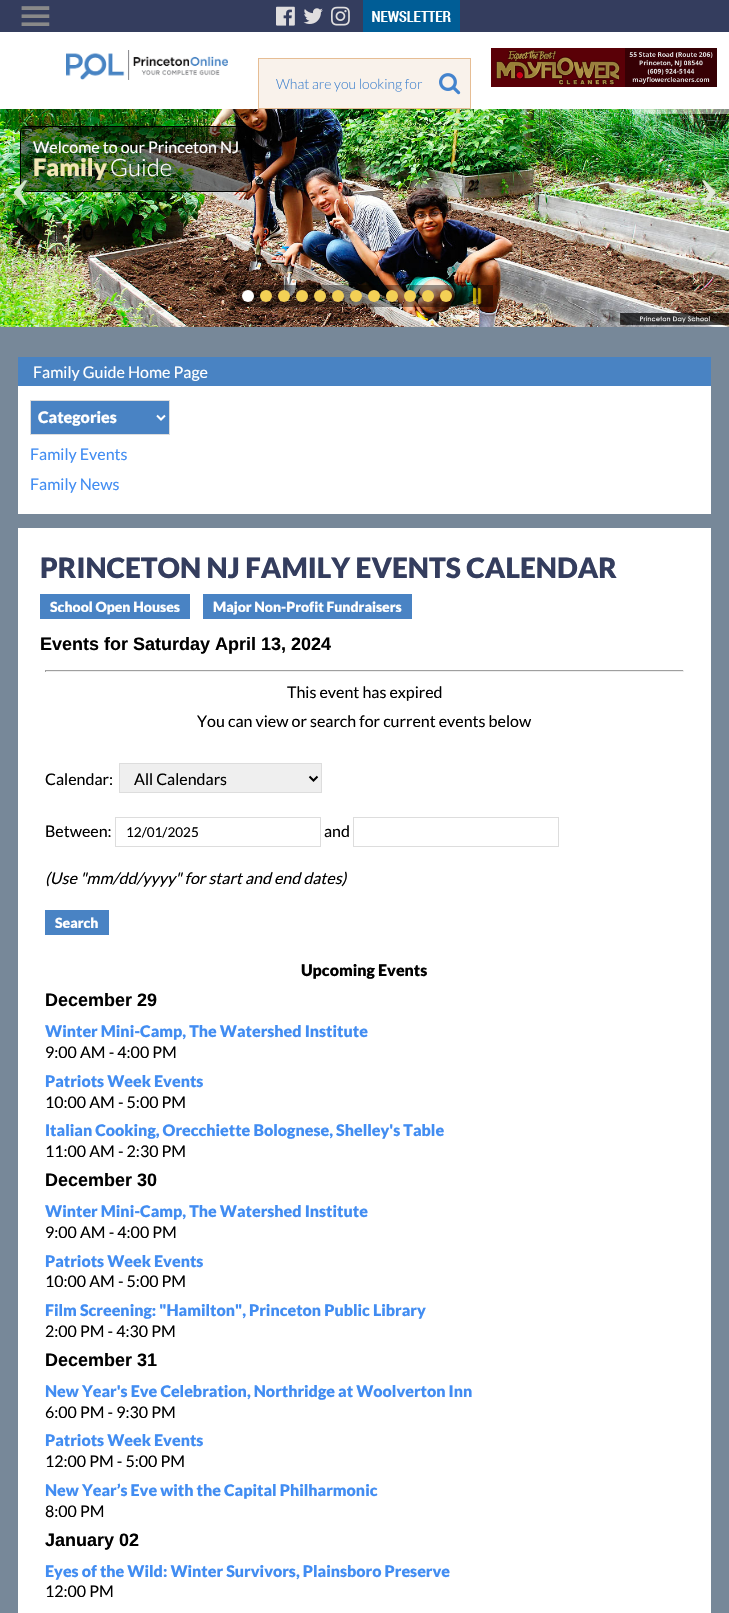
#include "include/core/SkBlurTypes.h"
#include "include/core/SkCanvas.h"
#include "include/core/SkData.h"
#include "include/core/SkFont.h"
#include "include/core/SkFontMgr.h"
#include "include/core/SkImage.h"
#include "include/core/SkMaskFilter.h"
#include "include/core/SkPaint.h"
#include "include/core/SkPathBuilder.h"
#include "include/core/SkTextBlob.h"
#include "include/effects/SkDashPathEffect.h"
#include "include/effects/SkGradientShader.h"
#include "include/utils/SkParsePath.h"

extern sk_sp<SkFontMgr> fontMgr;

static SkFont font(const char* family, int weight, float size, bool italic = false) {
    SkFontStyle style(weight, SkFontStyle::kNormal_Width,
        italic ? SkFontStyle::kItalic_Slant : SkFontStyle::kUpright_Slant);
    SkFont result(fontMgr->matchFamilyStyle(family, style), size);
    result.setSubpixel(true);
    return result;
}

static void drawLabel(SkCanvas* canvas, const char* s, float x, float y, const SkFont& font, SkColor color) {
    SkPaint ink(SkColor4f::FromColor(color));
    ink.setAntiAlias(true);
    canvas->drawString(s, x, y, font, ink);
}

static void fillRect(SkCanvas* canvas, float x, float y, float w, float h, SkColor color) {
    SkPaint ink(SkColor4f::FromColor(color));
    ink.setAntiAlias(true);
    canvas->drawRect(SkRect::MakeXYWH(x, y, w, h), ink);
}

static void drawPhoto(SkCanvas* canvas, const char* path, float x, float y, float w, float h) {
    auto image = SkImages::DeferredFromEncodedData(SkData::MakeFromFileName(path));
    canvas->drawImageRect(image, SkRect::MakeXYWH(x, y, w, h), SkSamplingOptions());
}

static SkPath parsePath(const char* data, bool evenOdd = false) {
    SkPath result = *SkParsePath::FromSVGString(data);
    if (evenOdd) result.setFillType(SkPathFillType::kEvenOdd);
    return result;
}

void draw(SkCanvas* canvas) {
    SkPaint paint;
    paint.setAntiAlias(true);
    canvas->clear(0xFF778899);
    fillRect(canvas, 0, 0, 729, 32, 0xFF343D5E);
    SkFont font1 = font("DejaVu Sans", 400, 44);
    drawLabel(canvas, "≡", 17, 30, font1, 0xFF898989);
    fillRect(canvas, 0, 32, 729, 77, 0xFFFFFFFF);
    drawPhoto(canvas, "assets/img1.png", 276, 6, 19, 20);
    drawPhoto(canvas, "assets/img2.png", 303, 8, 20, 16);
    drawPhoto(canvas, "assets/img3.png", 331, 6, 19, 20);
    drawPhoto(canvas, "assets/img4.png", 363, 0, 97, 32);
    drawPhoto(canvas, "assets/img5.png", 66, 50, 162, 30);
    drawPhoto(canvas, "assets/img6.png", 491, 48, 226, 39);
    paint.setColor(0xFFF9F2EB);
    canvas->drawRect(SkRect::MakeXYWH(258.5f, 58.5f, 212, 50), paint);
    paint.setStroke(true);
    paint.setStrokeWidth(1);
    paint.setColor(0xFFE6BD94);
    canvas->drawRect(SkRect::MakeXYWH(258.5f, 58.5f, 212, 50), paint);
    SkFont font2 = font("Lato", 300, 14);
    drawLabel(canvas, "What are you looking for", 276, 89, font2, 0xFF4484CE);
    drawPhoto(canvas, "assets/img7.png", 439, 73, 22, 22);
    drawPhoto(canvas, "assets/img8.png", 0, 109, 729, 218);
    fillRect(canvas, 644, 109, 85, 5, 0x80FFFFFF);
    paint.setStroke(false);
    paint.setColor(0x80000000);
    canvas->drawRoundRect(SkRect::MakeXYWH(20.5f, 126.5f, 231, 65), 5.5f, 5.5f, paint);
    paint.setStroke(true);
    paint.setColor(0xFF000000);
    canvas->drawRoundRect(SkRect::MakeXYWH(20.5f, 126.5f, 231, 65), 5.5f, 5.5f, paint);
    SkFont font3 = font("Lato", 400, 16);
    drawLabel(canvas, "Welcome to our Princeton NJ", 33, 153, font3, 0xFFFFFFFF);
    SkFont font4 = font("Lato", 900, 24);
    drawLabel(canvas, "Family", 33, 176, font4, 0xFFF3E7B7);
    SkFont font5 = font("Lato", 300, 24);
    drawLabel(canvas, "Guide", 110, 176, font5, 0xFFFFFFFF);
    SkFont font6 = font("Liberation Serif", 400, 64);
    drawLabel(canvas, "‹", 10, 207, font6, 0xFFD1E6CB);
    drawLabel(canvas, "›", 698, 207, font6, 0xFFE3EADB);
    fillRect(canvas, 237, 285, 256, 22, 0x66000000);
    paint.setStroke(false);
    paint.setColor(0xFFFFFFFF);
    canvas->drawCircle(248, 296, 6, paint);
    paint.setColor(0xFFF3D055);
    canvas->drawCircle(266, 296, 6, paint);
    canvas->drawCircle(284, 296, 6, paint);
    canvas->drawCircle(302, 296, 6, paint);
    canvas->drawCircle(320, 296, 6, paint);
    canvas->drawCircle(338, 296, 6, paint);
    canvas->drawCircle(356, 296, 6, paint);
    canvas->drawCircle(374, 296, 6, paint);
    canvas->drawCircle(392, 296, 6, paint);
    canvas->drawCircle(410, 296, 6, paint);
    canvas->drawCircle(428, 296, 6, paint);
    canvas->drawCircle(446, 296, 6, paint);
    drawPhoto(canvas, "assets/img9.png", 473, 287, 9, 18);
    fillRect(canvas, 18, 357, 693, 29, 0xFF4983C3);
    drawLabel(canvas, "Family Guide Home Page", 33, 378, font3, 0xFFFFFFFF);
    fillRect(canvas, 18, 386, 693, 128, 0xFFFFFFFF);
    paint.setColor(0xFF4983C4);
    canvas->drawRect(SkRect::MakeXYWH(30.5f, 400.5f, 139, 34), paint);
    paint.setStroke(true);
    paint.setColor(0xFFDDDDDD);
    canvas->drawRect(SkRect::MakeXYWH(30.5f, 400.5f, 139, 34), paint);
    paint.setStrokeWidth(2);
    paint.setColor(0xFFFFFFFF);
    canvas->drawPath(parsePath("M157 415.5L161 419.5L165 415.5"), paint);
    SkFont font7 = font("Lato", 900, 16);
    drawLabel(canvas, "Categories", 38, 423, font7, 0xFFFFFFFF);
    drawLabel(canvas, "Family Events", 30, 460, font3, 0xFF428DF2);
    drawLabel(canvas, "Family News", 30, 490, font3, 0xFF428DF2);
    fillRect(canvas, 18, 528, 693, 1085, 0xFFFFFFFF);
    SkFont font8 = font("Lato", 900, 28);
    drawLabel(canvas, "PRINCETON NJ FAMILY EVENTS CALENDAR", 40, 578, font8, 0xFF343D5E);
    fillRect(canvas, 40, 594, 150, 25, 0xFF4983C4);
    SkFont font9 = font("Lato", 900, 14);
    drawLabel(canvas, "School Open Houses", 50, 612, font9, 0xFFFFFFFF);
    fillRect(canvas, 203, 594, 209, 25, 0xFF4983C4);
    drawLabel(canvas, "Major Non-Profit Fundraisers", 213, 612, font9, 0xFFFFFFFF);
    SkFont font10 = font("Liberation Sans", 700, 18);
    drawLabel(canvas, "Events for Saturday April 13, 2024", 40, 650, font10, 0xFF000000);
    fillRect(canvas, 45, 670, 639, 1, 0xFF9F9F9F);
    fillRect(canvas, 683, 670, 1, 2, 0xFFEEEEEE);
    fillRect(canvas, 45, 671, 639, 1, 0xFFEEEEEE);
    fillRect(canvas, 45, 670, 1, 2, 0xFF9F9F9F);
    drawLabel(canvas, "This event has expired", 287, 698, font3, 0xFF000000);
    drawLabel(canvas, "You can view or search for current events below", 197, 727, font3, 0xFF000000);
    drawLabel(canvas, "Calendar:", 45, 785, font3, 0xFF000000);
    paint.setStroke(false);
    paint.setColor(0xFFEFEFEF);
    canvas->drawRect(SkRect::MakeXYWH(119.5f, 763.5f, 202, 29), paint);
    paint.setStroke(true);
    paint.setStrokeWidth(1);
    paint.setColor(0xFFDDDDDD);
    canvas->drawRect(SkRect::MakeXYWH(119.5f, 763.5f, 202, 29), paint);
    paint.setStrokeWidth(2);
    paint.setColor(0xFF000000);
    canvas->drawPath(parsePath("M309.5 776.5L313.5 780.5L317.5 776.5"), paint);
    drawLabel(canvas, "All Calendars", 134, 785, font3, 0xFF000000);
    drawLabel(canvas, "Between:", 45, 837, font3, 0xFF000000);
    paint.setStrokeWidth(1);
    paint.setColor(0xFFDDDDDD);
    canvas->drawRect(SkRect::MakeXYWH(115.5f, 817.5f, 205, 29), paint);
    SkFont font11 = font("Lato", 400, 13.5f);
    drawLabel(canvas, "12/01/2025", 126, 837, font11, 0xFF000000);
    drawLabel(canvas, "and", 324, 837, font3, 0xFF000000);
    canvas->drawRect(SkRect::MakeXYWH(353.5f, 817.5f, 205, 29), paint);
    SkFont font12 = font("Lato", 400, 16, true);
    drawLabel(canvas, "(Use \"mm/dd/yyyy\" for start and end dates)", 45, 884, font12, 0xFF000000);
    fillRect(canvas, 45, 910, 64, 25, 0xFF4983C4);
    drawLabel(canvas, "Search", 55, 928, font9, 0xFFFFFFFF);
    drawLabel(canvas, "Upcoming Events", 301, 976, font7, 0xFF000000);
    drawLabel(canvas, "December 29", 45, 1006, font10, 0xFF000000);
    drawLabel(canvas, "Winter Mini-Camp, The Watershed Institute", 45, 1037, font7, 0xFF428DF2);
    drawLabel(canvas, "9:00 AM - 4:00 PM", 45, 1058, font3, 0xFF000000);
    drawLabel(canvas, "Patriots Week Events", 45, 1087, font7, 0xFF428DF2);
    drawLabel(canvas, "10:00 AM - 5:00 PM", 45, 1108, font3, 0xFF000000);
    drawLabel(canvas, "Italian Cooking, Orecchiette Bolognese, Shelley's Table", 45, 1136, font7, 0xFF428DF2);
    drawLabel(canvas, "11:00 AM - 2:30 PM", 45, 1157, font3, 0xFF000000);
    drawLabel(canvas, "December 30", 45, 1186, font10, 0xFF000000);
    drawLabel(canvas, "Winter Mini-Camp, The Watershed Institute", 45, 1217, font7, 0xFF428DF2);
    drawLabel(canvas, "9:00 AM - 4:00 PM", 45, 1238, font3, 0xFF000000);
    drawLabel(canvas, "Patriots Week Events", 45, 1267, font7, 0xFF428DF2);
    drawLabel(canvas, "10:00 AM - 5:00 PM", 45, 1287, font3, 0xFF000000);
    drawLabel(canvas, "Film Screening: \"Hamilton\", Princeton Public Library", 45, 1316, font7, 0xFF428DF2);
    drawLabel(canvas, "2:00 PM - 4:30 PM", 45, 1337, font3, 0xFF000000);
    drawLabel(canvas, "December 31", 45, 1366, font10, 0xFF000000);
    drawLabel(canvas, "New Year's Eve Celebration, Northridge at Woolverton Inn", 45, 1397, font7, 0xFF428DF2);
    drawLabel(canvas, "6:00 PM - 9:30 PM", 45, 1418, font3, 0xFF000000);
    drawLabel(canvas, "Patriots Week Events", 45, 1446, font7, 0xFF428DF2);
    drawLabel(canvas, "12:00 PM - 5:00 PM", 45, 1467, font3, 0xFF000000);
    drawLabel(canvas, "New Year’s Eve with the Capital Philharmonic", 45, 1496, font7, 0xFF428DF2);
    drawLabel(canvas, "8:00 PM", 45, 1517, font3, 0xFF000000);
    drawLabel(canvas, "January 02", 45, 1546, font10, 0xFF000000);
    drawLabel(canvas, "Eyes of the Wild: Winter Survivors, Plainsboro Preserve", 45, 1577, font7, 0xFF428DF2);
    drawLabel(canvas, "12:00 PM", 45, 1597, font3, 0xFF000000);
}
